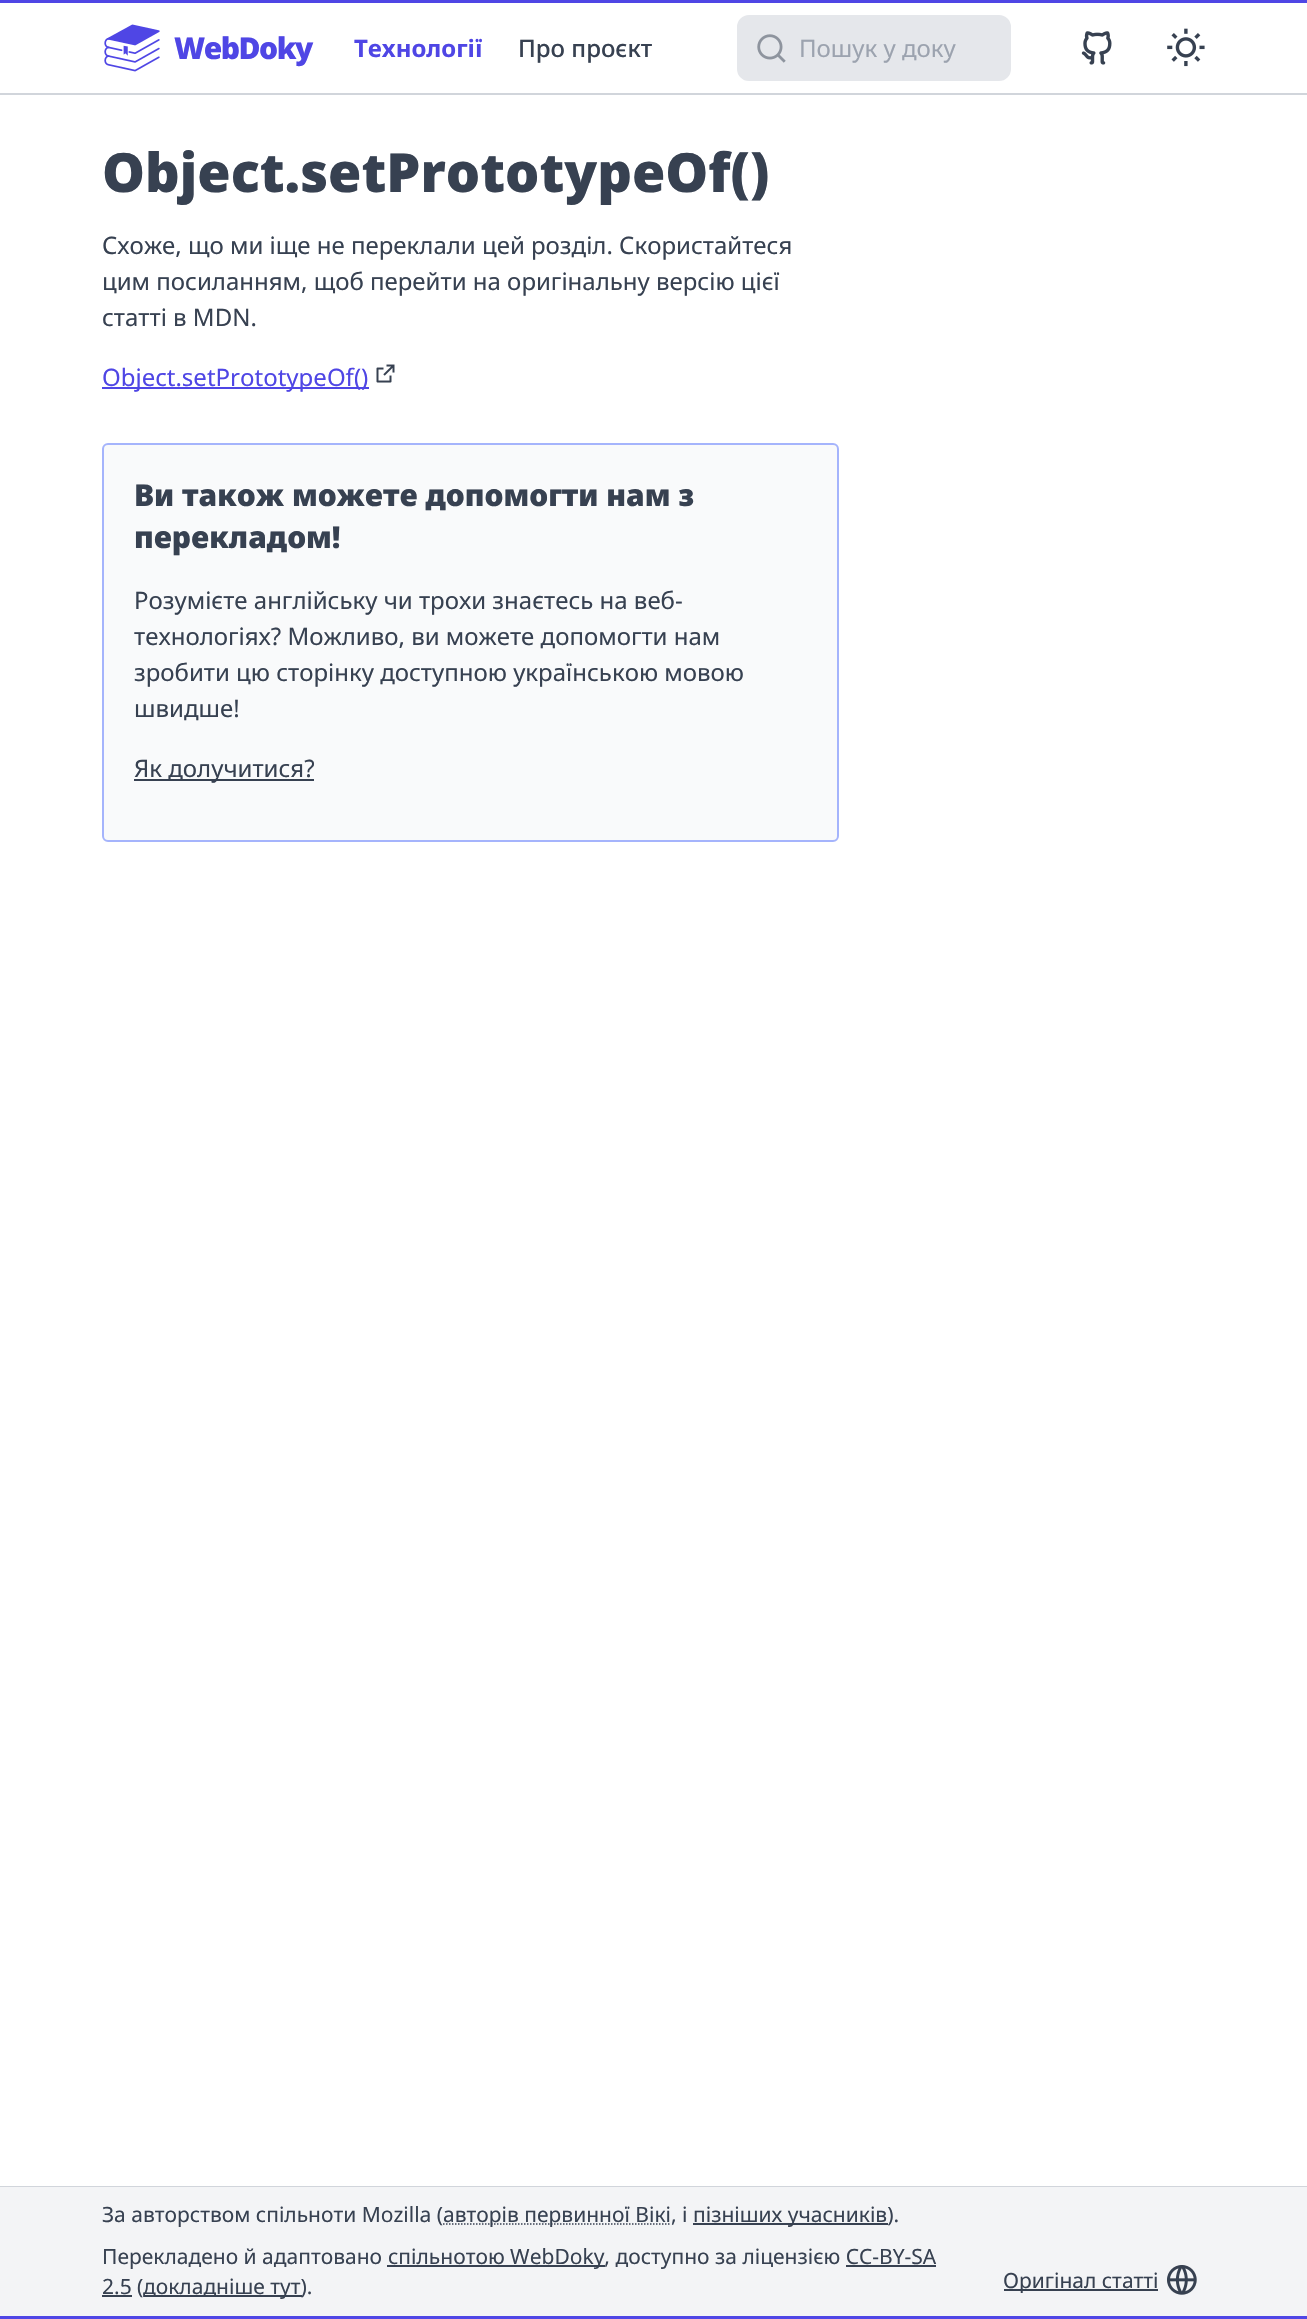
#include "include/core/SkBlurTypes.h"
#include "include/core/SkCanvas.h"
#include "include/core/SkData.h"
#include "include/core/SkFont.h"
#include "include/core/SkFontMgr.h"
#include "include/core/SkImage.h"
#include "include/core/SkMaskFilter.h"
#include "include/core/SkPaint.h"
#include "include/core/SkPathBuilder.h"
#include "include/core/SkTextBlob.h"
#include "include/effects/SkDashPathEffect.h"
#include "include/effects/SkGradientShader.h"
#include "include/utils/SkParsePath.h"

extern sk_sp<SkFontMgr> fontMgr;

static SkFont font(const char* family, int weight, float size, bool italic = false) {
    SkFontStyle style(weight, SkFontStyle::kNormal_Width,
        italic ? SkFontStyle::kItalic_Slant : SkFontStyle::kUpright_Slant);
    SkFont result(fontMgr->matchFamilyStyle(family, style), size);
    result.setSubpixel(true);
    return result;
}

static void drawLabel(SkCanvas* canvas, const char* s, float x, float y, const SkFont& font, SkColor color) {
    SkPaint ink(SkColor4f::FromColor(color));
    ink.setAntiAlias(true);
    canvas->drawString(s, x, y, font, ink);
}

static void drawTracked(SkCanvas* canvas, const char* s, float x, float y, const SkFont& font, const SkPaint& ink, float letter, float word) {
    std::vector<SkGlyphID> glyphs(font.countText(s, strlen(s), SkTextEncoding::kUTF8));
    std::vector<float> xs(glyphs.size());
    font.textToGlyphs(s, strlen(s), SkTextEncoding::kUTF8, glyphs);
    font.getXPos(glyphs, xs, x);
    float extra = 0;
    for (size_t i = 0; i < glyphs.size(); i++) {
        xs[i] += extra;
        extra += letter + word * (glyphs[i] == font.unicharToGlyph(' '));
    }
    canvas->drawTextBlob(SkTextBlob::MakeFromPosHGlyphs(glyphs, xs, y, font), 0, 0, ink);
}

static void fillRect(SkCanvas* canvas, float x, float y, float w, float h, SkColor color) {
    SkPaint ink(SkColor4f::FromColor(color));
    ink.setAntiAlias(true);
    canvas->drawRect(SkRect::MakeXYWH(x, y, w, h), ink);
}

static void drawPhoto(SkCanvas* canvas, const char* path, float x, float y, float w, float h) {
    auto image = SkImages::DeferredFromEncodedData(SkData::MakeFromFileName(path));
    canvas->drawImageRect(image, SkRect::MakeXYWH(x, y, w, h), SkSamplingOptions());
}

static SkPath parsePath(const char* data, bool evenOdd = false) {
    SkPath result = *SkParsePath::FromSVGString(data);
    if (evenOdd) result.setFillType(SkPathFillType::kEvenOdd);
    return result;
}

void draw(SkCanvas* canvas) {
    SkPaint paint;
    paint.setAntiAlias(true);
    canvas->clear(0xFFFFFFFF);
    fillRect(canvas, 0, 93, 1307, 2, 0xFFD1D5DB);
    fillRect(canvas, 0, 0, 1307, 3, 0xFF4F46E5);
    drawPhoto(canvas, "assets/img1.png", 104, 24, 56, 48);
    SkFont font1 = font("Noto Sans", 900, 30);
    paint.setColor(0xFF4F46E5);
    drawTracked(canvas, "WebDoky", 174, 59, font1, paint, -1.5f, 0);
    SkFont font2 = font("Noto Sans", 700, 24);
    drawLabel(canvas, "Технології", 354, 57, font2, 0xFF4F46E5);
    SkFont font3 = font("Noto Sans", 500, 24);
    drawLabel(canvas, "Про проєкт", 518, 57, font3, 0xFF374151);
    paint.setColor(0xFFE5E7EB);
    canvas->drawRoundRect(SkRect::MakeXYWH(738.5f, 16.5f, 271, 63), 10.5f, 10.5f, paint);
    paint.setStroke(true);
    paint.setStrokeWidth(3);
    canvas->drawRoundRect(SkRect::MakeXYWH(738.5f, 16.5f, 271, 63), 10.5f, 10.5f, paint);
    drawPhoto(canvas, "assets/img2.png", 757, 34, 29, 29);
    SkFont font4 = font("Noto Sans", 400, 24);
    drawLabel(canvas, "Пошук у доку", 799, 57, font4, 0xFF9CA3AF);
    drawPhoto(canvas, "assets/img3.png", 1081, 31, 31, 34);
    drawPhoto(canvas, "assets/img4.png", 1167, 28, 38, 39);
    SkFont font5 = font("Noto Sans", 900, 54);
    drawLabel(canvas, "Object.setPrototypeOf()", 102, 192, font5, 0xFF374151);
    drawLabel(canvas, "Схоже, що ми іще не переклали цей розділ. Скористайтеся", 102, 254, font4, 0xFF374151);
    drawLabel(canvas, "цим посиланням, щоб перейти на оригінальну версію цієї", 102, 290, font4, 0xFF374151);
    drawLabel(canvas, "статті в MDN.", 102, 326, font4, 0xFF374151);
    fillRect(canvas, 102, 387, 267, 2, 0xFF4F46E5);
    drawLabel(canvas, "Object.setPrototypeOf()", 102, 386, font4, 0xFF4F46E5);
    drawPhoto(canvas, "assets/img5.png", 376, 364, 19, 19);
    paint.setStroke(false);
    paint.setColor(0xFFF9FAFB);
    canvas->drawRoundRect(SkRect::MakeXYWH(103, 444, 735, 397), 5, 5, paint);
    paint.setStroke(true);
    paint.setStrokeWidth(2);
    paint.setColor(0xFFA5B4FC);
    canvas->drawRoundRect(SkRect::MakeXYWH(103, 444, 735, 397), 5, 5, paint);
    drawLabel(canvas, "Ви також можете допомогти нам з", 134, 506, font1, 0xFF374151);
    drawLabel(canvas, "перекладом!", 134, 548, font1, 0xFF374151);
    drawLabel(canvas, "Розумієте англійську чи трохи знаєтесь на веб-", 134, 609, font4, 0xFF374151);
    drawLabel(canvas, "технологіях? Можливо, ви можете допомогти нам", 134, 645, font4, 0xFF374151);
    drawLabel(canvas, "зробити цю сторінку доступною українською мовою", 134, 681, font4, 0xFF374151);
    drawLabel(canvas, "швидше!", 134, 717, font4, 0xFF374151);
    fillRect(canvas, 134, 779, 180, 2, 0xFF374151);
    drawLabel(canvas, "Як долучитися?", 134, 777, font4, 0xFF374151);
    fillRect(canvas, 0, 2186, 1307, 1, 0xFFD1D5DB);
    fillRect(canvas, 0, 2187, 1307, 129, 0xFFF3F4F6);
    fillRect(canvas, 0, 2316, 1307, 3, 0xFF4F46E5);
    SkFont font6 = font("Noto Sans", 400, 21);
    drawLabel(canvas, "За авторством спільноти Mozilla (", 102, 2222, font6, 0xFF374151);
    paint.setStrokeWidth(1.5f);
    paint.setColor(0xFF374151);
    paint.setPathEffect(SkDashPathEffect::Make({{1.5f, 1.5f}}, 0));
    canvas->drawPath(parsePath("M443 2224H671"), paint);
    paint.setPathEffect(nullptr);
    drawLabel(canvas, "авторів первинної Вікі, і", 443, 2222, font6, 0xFF374151);
    fillRect(canvas, 693, 2223, 195, 2, 0xFF374151);
    drawLabel(canvas, "пізніших учасників).", 693, 2222, font6, 0xFF374151);
    drawLabel(canvas, "Перекладено й адаптовано", 102, 2264, font6, 0xFF374151);
    fillRect(canvas, 387, 2265, 218, 2, 0xFF374151);
    drawLabel(canvas, "спільнотою WebDoky, доступно за ліцензією CC-BY-SA", 388, 2264, font6, 0xFF374151);
    fillRect(canvas, 102, 2295, 30, 2, 0xFF374151);
    drawLabel(canvas, "2.5 (", 102, 2294, font6, 0xFF374151);
    fillRect(canvas, 846, 2265, 90, 2, 0xFF374151);
    fillRect(canvas, 144, 2295, 158, 2, 0xFF374151);
    drawLabel(canvas, "докладніше тут).", 143, 2294, font6, 0xFF374151);
    fillRect(canvas, 1004, 2289, 154, 2, 0xFF374151);
    drawLabel(canvas, "Оригінал статті", 1003, 2288, font6, 0xFF374151);
    drawPhoto(canvas, "assets/img6.png", 1167, 2265, 30, 30);
}
